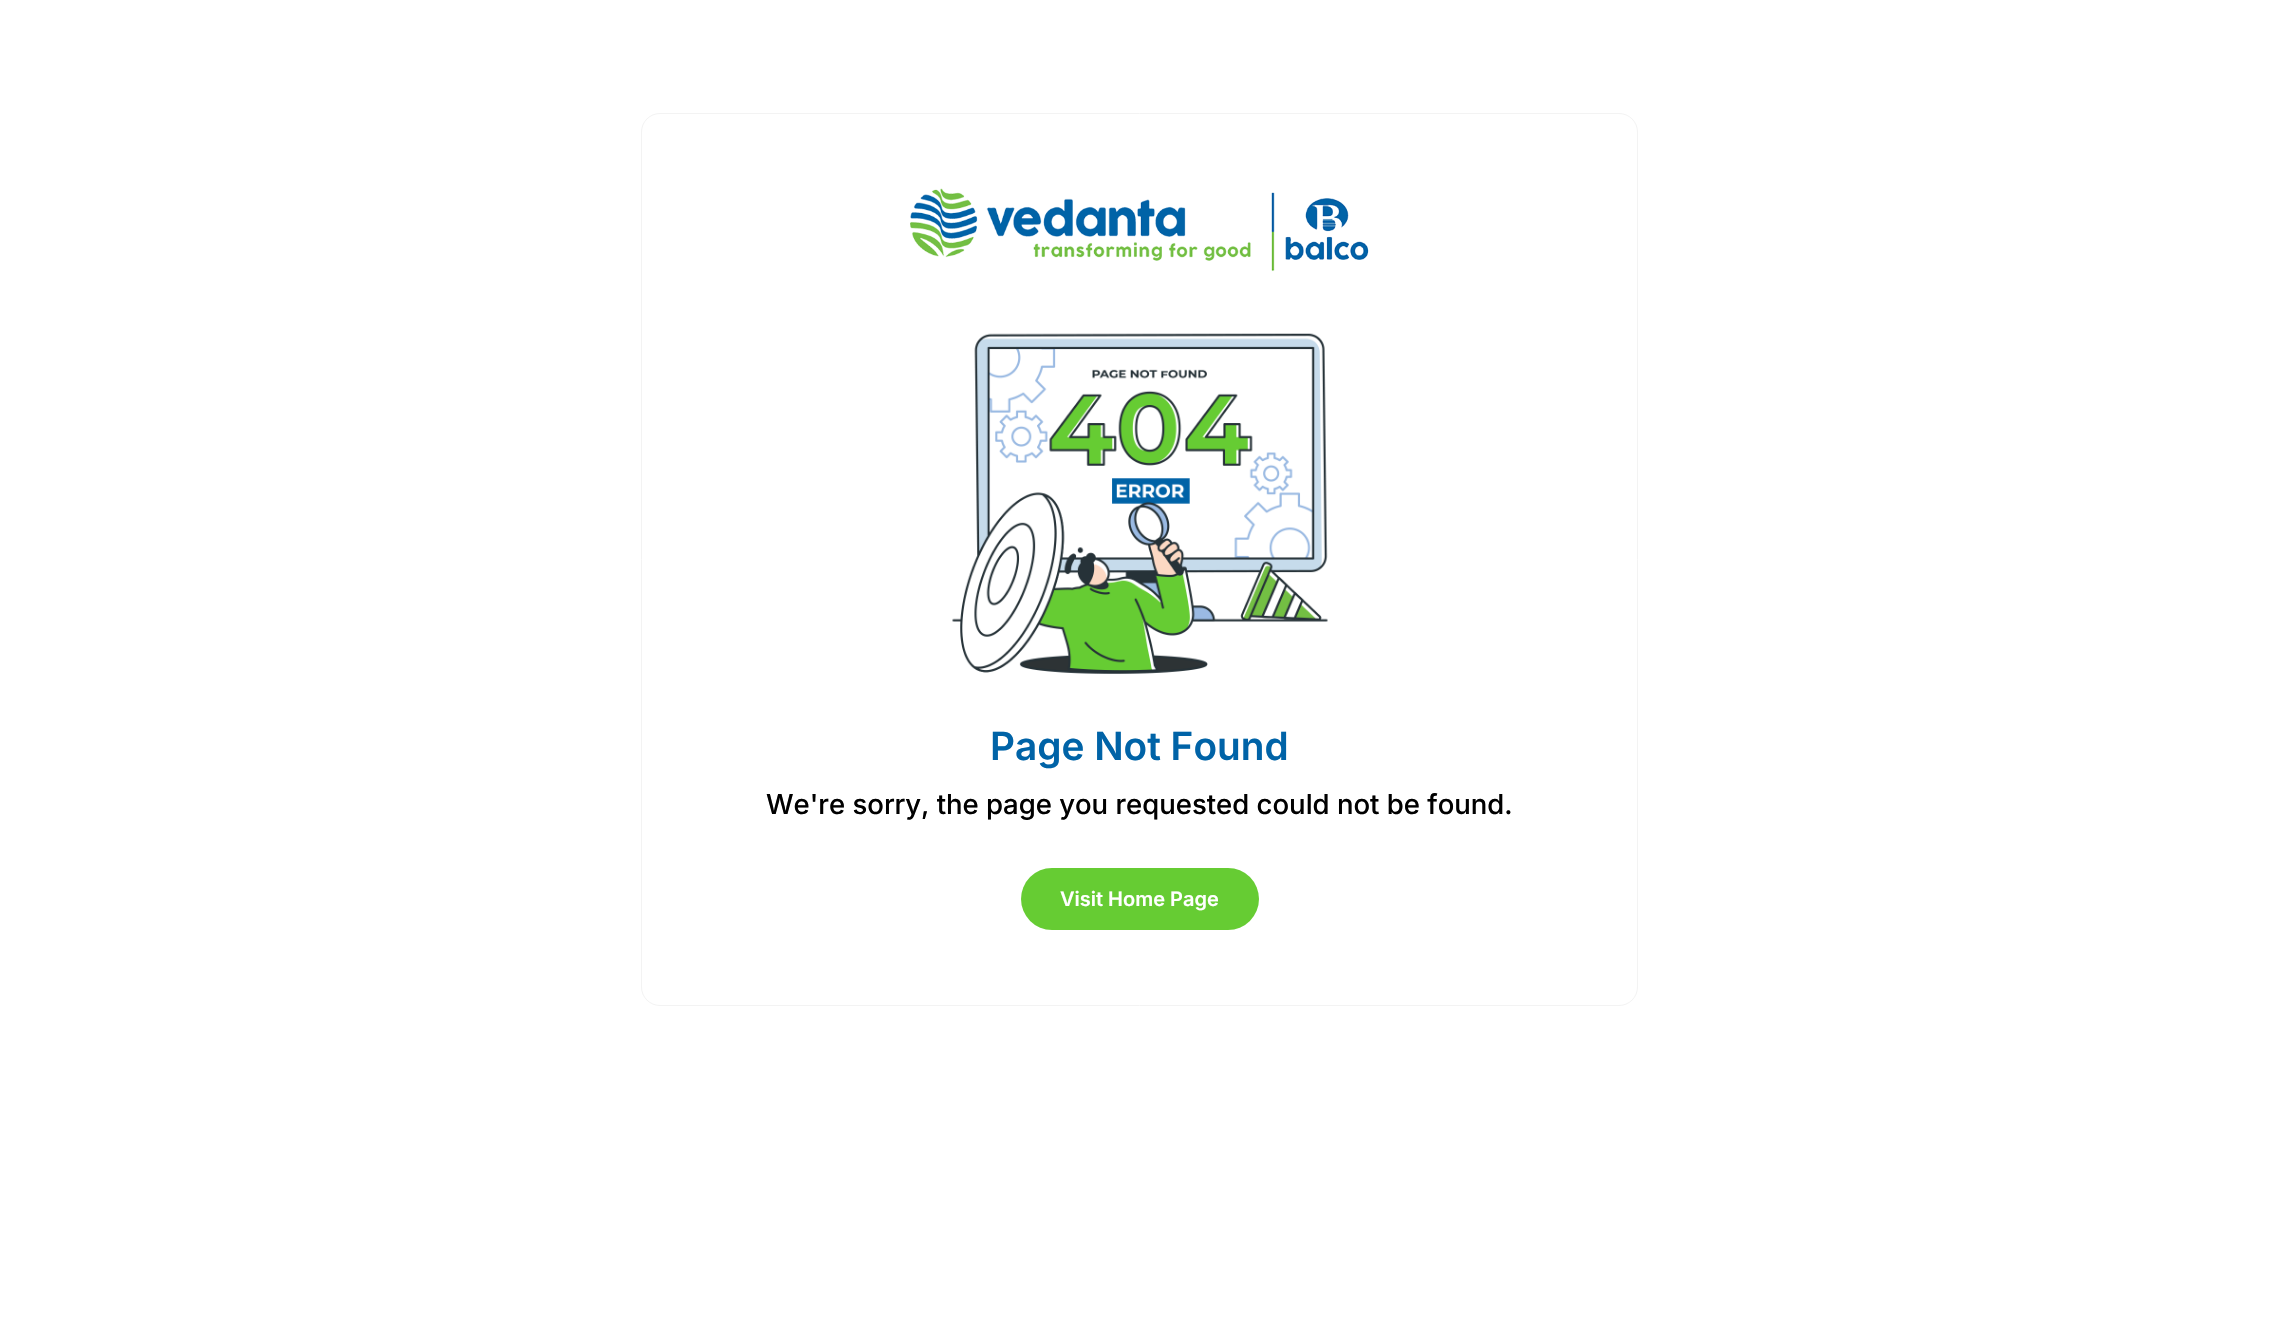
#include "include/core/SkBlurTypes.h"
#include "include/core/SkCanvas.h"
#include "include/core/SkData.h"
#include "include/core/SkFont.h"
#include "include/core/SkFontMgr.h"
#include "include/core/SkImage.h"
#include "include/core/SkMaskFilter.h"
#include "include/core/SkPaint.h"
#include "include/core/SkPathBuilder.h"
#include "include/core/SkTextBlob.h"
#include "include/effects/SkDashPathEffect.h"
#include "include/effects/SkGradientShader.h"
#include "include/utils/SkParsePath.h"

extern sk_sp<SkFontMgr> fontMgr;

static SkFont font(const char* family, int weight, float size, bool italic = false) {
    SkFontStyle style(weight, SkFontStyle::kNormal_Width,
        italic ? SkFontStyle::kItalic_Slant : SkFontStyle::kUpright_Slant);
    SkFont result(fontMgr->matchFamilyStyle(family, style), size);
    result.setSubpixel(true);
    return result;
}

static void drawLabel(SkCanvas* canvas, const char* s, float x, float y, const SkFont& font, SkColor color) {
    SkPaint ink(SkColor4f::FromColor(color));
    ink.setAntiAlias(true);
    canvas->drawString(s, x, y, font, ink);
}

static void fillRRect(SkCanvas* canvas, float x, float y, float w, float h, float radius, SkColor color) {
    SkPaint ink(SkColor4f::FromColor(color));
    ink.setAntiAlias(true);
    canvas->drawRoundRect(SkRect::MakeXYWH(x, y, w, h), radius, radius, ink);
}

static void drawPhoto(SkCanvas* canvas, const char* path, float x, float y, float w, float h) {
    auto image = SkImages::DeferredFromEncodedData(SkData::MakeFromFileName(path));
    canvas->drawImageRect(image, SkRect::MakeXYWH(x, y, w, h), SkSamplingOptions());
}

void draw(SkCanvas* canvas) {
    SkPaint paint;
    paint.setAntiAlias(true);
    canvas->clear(0xFFFFFFFF);
    paint.setStroke(true);
    paint.setStrokeWidth(1);
    paint.setColor(0xFFF3F3F3);
    canvas->drawRoundRect(SkRect::MakeXYWH(641.5f, 113.5f, 996, 892), 18.5f, 18.5f, paint);
    drawPhoto(canvas, "assets/img1.png", 910, 188, 459, 84);
    drawPhoto(canvas, "assets/img2.png", 952, 333, 376, 341);
    SkFont font1 = font("Inter", 600, 38.75f);
    drawLabel(canvas, "Page Not Found", 990, 760, font1, 0xFF0063A7);
    SkFont font2 = font("Inter", 500, 27.5f);
    drawLabel(canvas, "We're sorry, the page you requested could not be found.", 766, 814, font2, 0xFF000000);
    fillRRect(canvas, 1021, 868, 238, 62, 31, 0xFF66CC33);
    SkFont font3 = font("Inter", 600, 20);
    drawLabel(canvas, "Visit Home Page", 1060, 906, font3, 0xFFFFFFFF);
}
